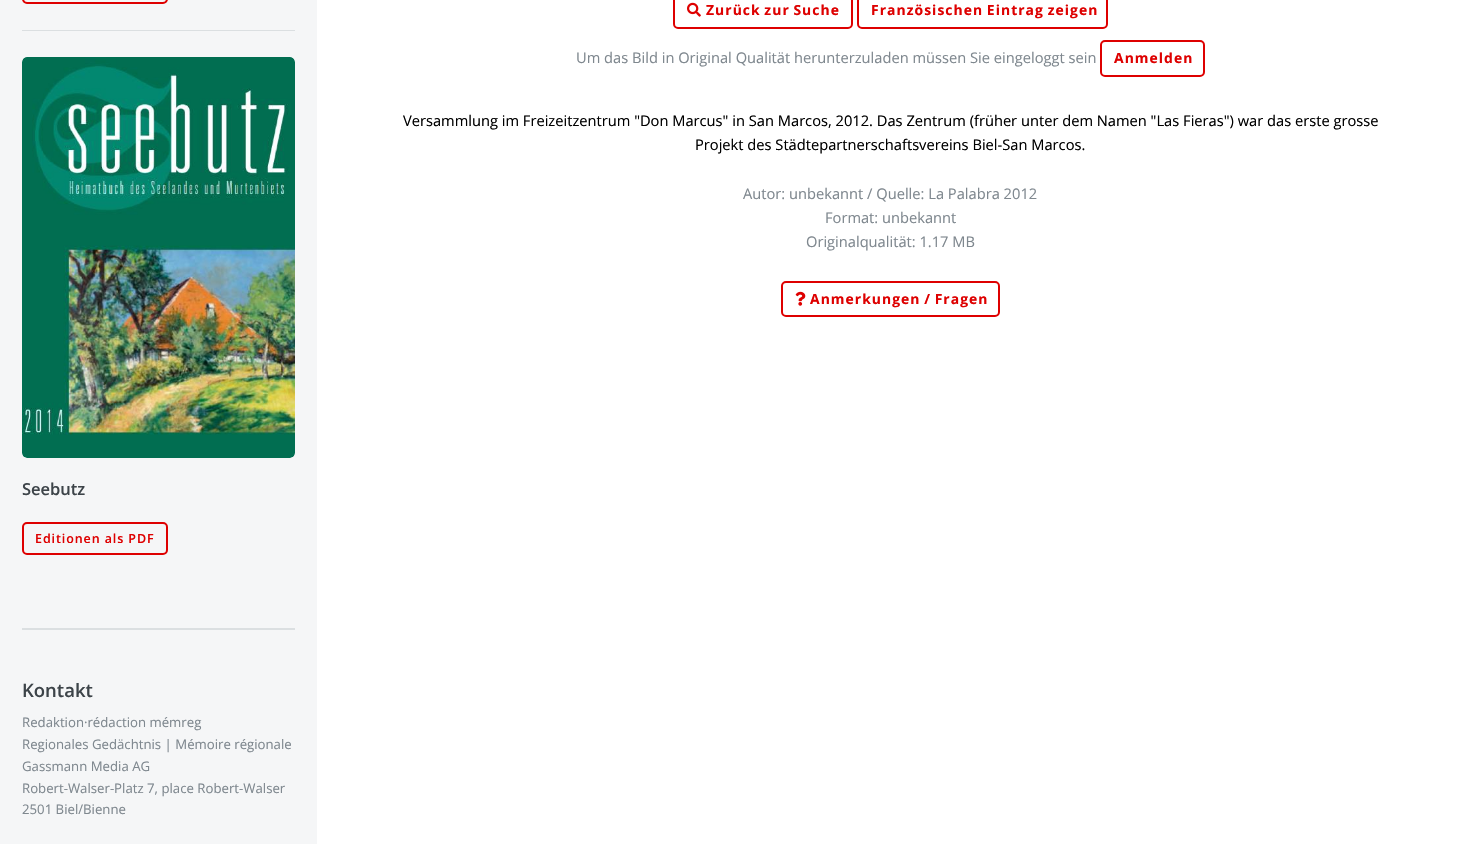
#include "include/core/SkBlurTypes.h"
#include "include/core/SkCanvas.h"
#include "include/core/SkData.h"
#include "include/core/SkFont.h"
#include "include/core/SkFontMgr.h"
#include "include/core/SkImage.h"
#include "include/core/SkMaskFilter.h"
#include "include/core/SkPaint.h"
#include "include/core/SkPathBuilder.h"
#include "include/core/SkTextBlob.h"
#include "include/effects/SkDashPathEffect.h"
#include "include/effects/SkGradientShader.h"
#include "include/utils/SkParsePath.h"

extern sk_sp<SkFontMgr> fontMgr;

static SkFont font(const char* family, int weight, float size, bool italic = false) {
    SkFontStyle style(weight, SkFontStyle::kNormal_Width,
        italic ? SkFontStyle::kItalic_Slant : SkFontStyle::kUpright_Slant);
    SkFont result(fontMgr->matchFamilyStyle(family, style), size);
    result.setSubpixel(true);
    return result;
}

static void drawLabel(SkCanvas* canvas, const char* s, float x, float y, const SkFont& font, SkColor color) {
    SkPaint ink(SkColor4f::FromColor(color));
    ink.setAntiAlias(true);
    canvas->drawString(s, x, y, font, ink);
}

static void drawTracked(SkCanvas* canvas, const char* s, float x, float y, const SkFont& font, const SkPaint& ink, float letter, float word) {
    std::vector<SkGlyphID> glyphs(font.countText(s, strlen(s), SkTextEncoding::kUTF8));
    std::vector<float> xs(glyphs.size());
    font.textToGlyphs(s, strlen(s), SkTextEncoding::kUTF8, glyphs);
    font.getXPos(glyphs, xs, x);
    float extra = 0;
    for (size_t i = 0; i < glyphs.size(); i++) {
        xs[i] += extra;
        extra += letter + word * (glyphs[i] == font.unicharToGlyph(' '));
    }
    canvas->drawTextBlob(SkTextBlob::MakeFromPosHGlyphs(glyphs, xs, y, font), 0, 0, ink);
}

static void fillRect(SkCanvas* canvas, float x, float y, float w, float h, SkColor color) {
    SkPaint ink(SkColor4f::FromColor(color));
    ink.setAntiAlias(true);
    canvas->drawRect(SkRect::MakeXYWH(x, y, w, h), ink);
}

static void drawPhoto(SkCanvas* canvas, const char* path, float x, float y, float w, float h) {
    auto image = SkImages::DeferredFromEncodedData(SkData::MakeFromFileName(path));
    canvas->drawImageRect(image, SkRect::MakeXYWH(x, y, w, h), SkSamplingOptions());
}

void draw(SkCanvas* canvas) {
    SkPaint paint;
    paint.setAntiAlias(true);
    canvas->clear(0xFFFFFFFF);
    paint.setStroke(true);
    paint.setStrokeWidth(2);
    paint.setColor(0xFFDE0000);
    canvas->drawRoundRect(SkRect::MakeXYWH(674, -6, 178, 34), 4, 4, paint);
    drawPhoto(canvas, "assets/img1.png", 687, 2, 14, 15);
    SkFont font1 = font("Open Sans", 700, 13.9f);
    paint.setStroke(false);
    drawTracked(canvas, "Zurück zur Suche", 706, 15, font1, paint, 1.05f, -1);
    paint.setStroke(true);
    canvas->drawRoundRect(SkRect::MakeXYWH(858, -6, 249, 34), 4, 4, paint);
    paint.setStroke(false);
    drawTracked(canvas, "Französischen Eintrag zeigen", 871, 15, font1, paint, 1.05f, -1);
    SkFont font2 = font("Open Sans", 400, 14.67f);
    drawLabel(canvas, "Um das Bild in Original Qualität herunterzuladen müssen Sie eingeloggt sein", 576, 63, font2, 0xFF7F888F);
    paint.setStroke(true);
    canvas->drawRoundRect(SkRect::MakeXYWH(1101, 41, 103, 35), 4, 4, paint);
    paint.setStroke(false);
    drawTracked(canvas, "Anmelden", 1114, 63, font1, paint, 1.05f, 0);
    drawLabel(canvas, "Versammlung im Freizeitzentrum \"Don Marcus\" in San Marcos, 2012. Das Zentrum (früher unter dem Namen \"Las Fieras\") war das erste grosse", 403, 126, font2, 0xFF000000);
    drawLabel(canvas, "Projekt des Städtepartnerschaftsvereins Biel-San Marcos.", 695, 150, font2, 0xFF000000);
    drawLabel(canvas, "Autor: unbekannt / Quelle: La Palabra 2012", 743, 199, font2, 0xFF7F888F);
    drawLabel(canvas, "Format: unbekannt", 825, 223, font2, 0xFF7F888F);
    drawLabel(canvas, "Originalqualität: 1.17 MB", 806, 247, font2, 0xFF7F888F);
    paint.setStroke(true);
    canvas->drawRoundRect(SkRect::MakeXYWH(782, 282, 217, 34), 4, 4, paint);
    drawPhoto(canvas, "assets/img2.png", 795, 291, 11, 15);
    paint.setStroke(false);
    drawTracked(canvas, "Anmerkungen / Fragen", 810, 304, font1, paint, 1.05f, -1);
    fillRect(canvas, 0, 0, 317, 844, 0xFFF5F6F7);
    fillRect(canvas, 22, 628, 273, 2, 0xFFDBDFE1);
    paint.setStroke(true);
    canvas->drawRoundRect(SkRect::MakeXYWH(23, -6, 144, 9), 4, 4, paint);
    fillRect(canvas, 22, 30, 273, 1, 0xFFDBDFE1);
    drawPhoto(canvas, "assets/img3.png", 22, 57, 273, 401);
    SkFont font3 = font("Open Sans", 600, 16.5f);
    drawLabel(canvas, "Seebutz", 22, 495, font3, 0xFF3D4449);
    canvas->drawRoundRect(SkRect::MakeXYWH(23, 523, 144, 31), 4, 4, paint);
    SkFont font4 = font("Open Sans", 600, 12.5f);
    paint.setStroke(false);
    drawTracked(canvas, "Editionen als PDF", 35, 543, font4, paint, 0.9f, 0);
    SkFont font5 = font("Open Sans", 600, 18.5f);
    drawLabel(canvas, "Kontakt", 22, 697, font5, 0xFF3D4449);
    SkFont font6 = font("Open Sans", 400, 13.2f);
    drawLabel(canvas, "Redaktion·rédaction mémreg", 22, 727, font6, 0xFF7F888F);
    drawLabel(canvas, "Regionales Gedächtnis | Mémoire régionale", 22, 749, font6, 0xFF7F888F);
    drawLabel(canvas, "Gassmann Media AG", 22, 771, font6, 0xFF7F888F);
    drawLabel(canvas, "Robert-Walser-Platz 7, place Robert-Walser", 22, 793, font6, 0xFF7F888F);
    drawLabel(canvas, "2501 Biel/Bienne", 22, 814, font6, 0xFF7F888F);
}
